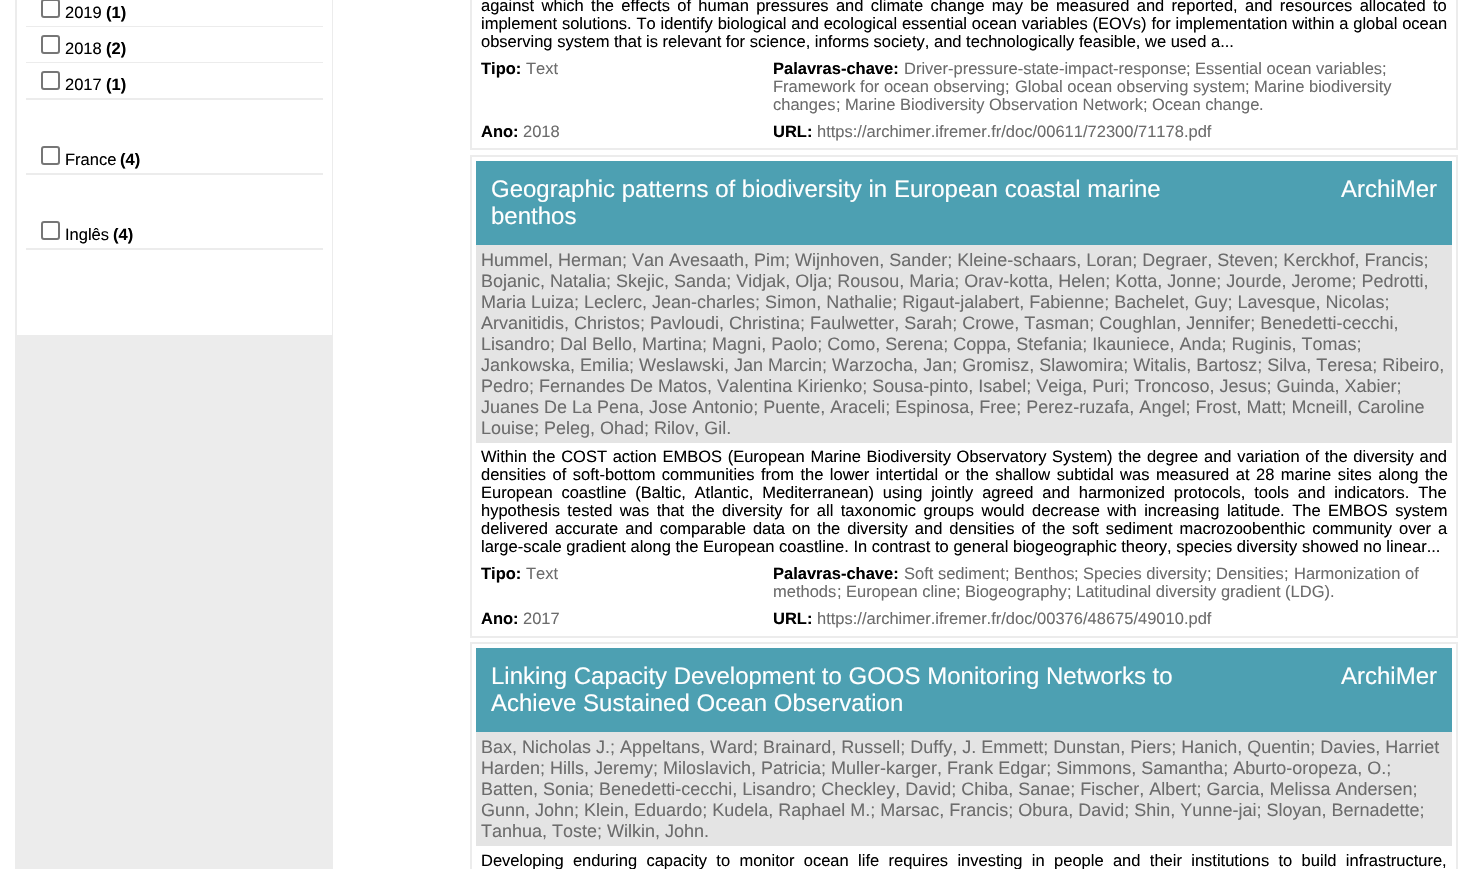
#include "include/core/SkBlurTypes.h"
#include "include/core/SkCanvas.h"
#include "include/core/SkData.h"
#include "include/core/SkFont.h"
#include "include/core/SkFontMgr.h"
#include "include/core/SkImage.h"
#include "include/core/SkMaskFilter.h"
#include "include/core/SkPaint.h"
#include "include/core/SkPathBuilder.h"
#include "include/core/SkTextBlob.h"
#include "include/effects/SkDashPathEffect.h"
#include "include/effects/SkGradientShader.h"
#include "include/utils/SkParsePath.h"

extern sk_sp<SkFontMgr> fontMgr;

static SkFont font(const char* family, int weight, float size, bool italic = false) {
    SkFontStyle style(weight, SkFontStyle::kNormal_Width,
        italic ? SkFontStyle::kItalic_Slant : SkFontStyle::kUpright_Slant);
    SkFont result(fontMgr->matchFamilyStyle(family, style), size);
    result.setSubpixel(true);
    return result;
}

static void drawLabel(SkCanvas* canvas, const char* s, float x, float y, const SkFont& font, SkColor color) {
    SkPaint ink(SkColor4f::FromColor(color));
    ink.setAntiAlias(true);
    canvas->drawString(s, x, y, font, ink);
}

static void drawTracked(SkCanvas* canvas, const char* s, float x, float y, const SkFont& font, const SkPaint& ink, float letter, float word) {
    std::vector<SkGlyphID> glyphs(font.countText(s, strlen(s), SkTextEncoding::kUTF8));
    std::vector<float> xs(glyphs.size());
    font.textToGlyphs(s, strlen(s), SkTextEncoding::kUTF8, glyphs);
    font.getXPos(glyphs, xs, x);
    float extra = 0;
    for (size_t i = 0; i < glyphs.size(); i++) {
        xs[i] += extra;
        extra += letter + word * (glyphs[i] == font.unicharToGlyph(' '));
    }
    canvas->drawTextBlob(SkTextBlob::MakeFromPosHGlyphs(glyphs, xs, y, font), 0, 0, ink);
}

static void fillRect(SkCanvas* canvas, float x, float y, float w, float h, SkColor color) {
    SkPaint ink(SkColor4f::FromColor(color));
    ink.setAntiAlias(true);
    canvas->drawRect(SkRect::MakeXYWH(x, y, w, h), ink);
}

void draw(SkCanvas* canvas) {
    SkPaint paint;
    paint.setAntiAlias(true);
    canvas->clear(0xFFFFFFFF);
    fillRect(canvas, 15, 0, 318, 869, 0xFFECECEC);
    fillRect(canvas, 17, 0, 315, 335, 0xFFFFFFFF);
    fillRect(canvas, 26, 26, 297, 1, 0xFFECECEC);
    paint.setStroke(true);
    paint.setStrokeWidth(2);
    paint.setColor(0xFF767676);
    canvas->drawRoundRect(SkRect::MakeXYWH(42, 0, 17, 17), 2, 2, paint);
    SkFont font1 = font("Liberation Sans", 400, 16.5f);
    drawLabel(canvas, "2019", 65, 18, font1, 0xFF000000);
    SkFont font2 = font("Liberation Sans", 700, 16.5f);
    drawLabel(canvas, "(1)", 106, 18, font2, 0xFF000000);
    fillRect(canvas, 26, 62, 297, 1, 0xFFECECEC);
    canvas->drawRoundRect(SkRect::MakeXYWH(42, 36, 17, 17), 2, 2, paint);
    drawLabel(canvas, "2018", 65, 54, font1, 0xFF000000);
    drawLabel(canvas, "(2)", 106, 54, font2, 0xFF000000);
    fillRect(canvas, 26, 98, 297, 2, 0xFFECECEC);
    canvas->drawRoundRect(SkRect::MakeXYWH(42, 72, 17, 17), 2, 2, paint);
    drawLabel(canvas, "2017", 65, 90, font1, 0xFF000000);
    drawLabel(canvas, "(1)", 106, 90, font2, 0xFF000000);
    fillRect(canvas, 26, 173, 297, 2, 0xFFECECEC);
    canvas->drawRoundRect(SkRect::MakeXYWH(42, 147, 17, 17), 2, 2, paint);
    drawLabel(canvas, "France", 65, 165, font1, 0xFF000000);
    drawLabel(canvas, "(4)", 120, 165, font2, 0xFF000000);
    fillRect(canvas, 26, 248, 297, 2, 0xFFECECEC);
    canvas->drawRoundRect(SkRect::MakeXYWH(42, 222, 17, 17), 2, 2, paint);
    drawLabel(canvas, "Inglês", 65, 240, font1, 0xFF000000);
    drawLabel(canvas, "(4)", 113, 240, font2, 0xFF000000);
    paint.setColor(0xFFECECEC);
    canvas->drawRect(SkRect::MakeXYWH(471, -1, 986, 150), paint);
    paint.setStroke(false);
    paint.setColor(0xFF000000);
    drawTracked(canvas, "against which the effects of human pressures and climate change may be measured and reported, and resources allocated to", 481, 11, font1, paint, 0, 2.75f);
    drawTracked(canvas, "implement solutions. To identify biological and ecological essential ocean variables (EOVs) for implementation within a global ocean", 481, 29, font1, paint, 0, 0.25f);
    drawLabel(canvas, "observing system that is relevant for science, informs society, and technologically feasible, we used a...", 481, 47, font1, 0xFF000000);
    drawLabel(canvas, "Tipo:", 481, 74, font2, 0xFF000000);
    drawLabel(canvas, "Text", 526, 74, font1, 0xFF6C6C6C);
    drawLabel(canvas, "Palavras-chave:", 773, 74, font2, 0xFF000000);
    drawLabel(canvas, "Driver-pressure-state-impact-response", 904, 74, font1, 0xFF6C6C6C);
    drawLabel(canvas, ";", 1186, 74, font1, 0xFF666666);
    drawLabel(canvas, "Essential ocean variables", 1195, 74, font1, 0xFF6C6C6C);
    drawLabel(canvas, ";", 1382, 74, font1, 0xFF666666);
    drawLabel(canvas, "Framework for ocean observing", 773, 92, font1, 0xFF6C6C6C);
    drawLabel(canvas, ";", 1005, 92, font1, 0xFF666666);
    drawLabel(canvas, "Global ocean observing system", 1015, 92, font1, 0xFF6C6C6C);
    drawLabel(canvas, ";", 1245, 92, font1, 0xFF666666);
    drawLabel(canvas, "Marine biodiversity", 1254, 92, font1, 0xFF6C6C6C);
    drawLabel(canvas, "changes", 773, 110, font1, 0xFF6C6C6C);
    drawLabel(canvas, ";", 836, 110, font1, 0xFF666666);
    drawLabel(canvas, "Marine Biodiversity Observation Network", 845, 110, font1, 0xFF6C6C6C);
    drawLabel(canvas, ";", 1143, 110, font1, 0xFF666666);
    drawLabel(canvas, "Ocean change", 1152, 110, font1, 0xFF6C6C6C);
    drawLabel(canvas, ".", 1259, 110, font1, 0xFF666666);
    drawLabel(canvas, "Ano:", 481, 137, font2, 0xFF000000);
    drawLabel(canvas, "2018", 523, 137, font1, 0xFF6C6C6C);
    drawLabel(canvas, "URL:", 773, 137, font2, 0xFF000000);
    drawLabel(canvas, "https://archimer.ifremer.fr/doc/00611/72300/71178.pdf", 817, 137, font1, 0xFF6C6C6C);
    paint.setStroke(true);
    paint.setColor(0xFFECECEC);
    canvas->drawRect(SkRect::MakeXYWH(471, 156, 986, 481), paint);
    fillRect(canvas, 476, 161, 976, 84, 0xFF4DA0B2);
    SkFont font3 = font("Liberation Sans", 400, 24);
    drawLabel(canvas, "Geographic patterns of biodiversity in European coastal marine", 491, 197, font3, 0xFFFFFFFF);
    drawLabel(canvas, "benthos", 491, 224, font3, 0xFFFFFFFF);
    drawLabel(canvas, "ArchiMer", 1341, 197, font3, 0xFFFFFFFF);
    fillRect(canvas, 476, 245, 976, 198, 0xFFE4E4E4);
    SkFont font4 = font("Liberation Sans", 400, 18);
    drawLabel(canvas, "Hummel, Herman; Van Avesaath, Pim; Wijnhoven, Sander; Kleine-schaars, Loran; Degraer, Steven; Kerckhof, Francis;", 481, 266, font4, 0xFF6C6C6C);
    drawLabel(canvas, "Bojanic, Natalia; Skejic, Sanda; Vidjak, Olja; Rousou, Maria; Orav-kotta, Helen; Kotta, Jonne; Jourde, Jerome; Pedrotti,", 481, 287, font4, 0xFF6C6C6C);
    drawLabel(canvas, "Maria Luiza; Leclerc, Jean-charles; Simon, Nathalie; Rigaut-jalabert, Fabienne; Bachelet, Guy; Lavesque, Nicolas;", 481, 308, font4, 0xFF6C6C6C);
    drawLabel(canvas, "Arvanitidis, Christos; Pavloudi, Christina; Faulwetter, Sarah; Crowe, Tasman; Coughlan, Jennifer; Benedetti-cecchi,", 481, 329, font4, 0xFF6C6C6C);
    drawLabel(canvas, "Lisandro; Dal Bello, Martina; Magni, Paolo; Como, Serena; Coppa, Stefania; Ikauniece, Anda; Ruginis, Tomas;", 481, 350, font4, 0xFF6C6C6C);
    drawLabel(canvas, "Jankowska, Emilia; Weslawski, Jan Marcin; Warzocha, Jan; Gromisz, Slawomira; Witalis, Bartosz; Silva, Teresa; Ribeiro,", 481, 371, font4, 0xFF6C6C6C);
    drawLabel(canvas, "Pedro; Fernandes De Matos, Valentina Kirienko; Sousa-pinto, Isabel; Veiga, Puri; Troncoso, Jesus; Guinda, Xabier;", 481, 392, font4, 0xFF6C6C6C);
    drawLabel(canvas, "Juanes De La Pena, Jose Antonio; Puente, Araceli; Espinosa, Free; Perez-ruzafa, Angel; Frost, Matt; Mcneill, Caroline", 481, 413, font4, 0xFF6C6C6C);
    drawLabel(canvas, "Louise; Peleg, Ohad; Rilov, Gil.", 481, 434, font4, 0xFF6C6C6C);
    paint.setStroke(false);
    paint.setColor(0xFF000000);
    drawTracked(canvas, "Within the COST action EMBOS (European Marine Biodiversity Observatory System) the degree and variation of the diversity and", 481, 462, font1, paint, 0, 1.1f);
    drawTracked(canvas, "densities of soft-bottom communities from the lower intertidal or the shallow subtidal was measured at 28 marine sites along the", 481, 480, font1, paint, 0, 1.9f);
    drawTracked(canvas, "European coastline (Baltic, Atlantic, Mediterranean) using jointly agreed and harmonized protocols, tools and indicators. The", 481, 498, font1, paint, 0, 4.25f);
    drawTracked(canvas, "hypothesis tested was that the diversity for all taxonomic groups would decrease with increasing latitude. The EMBOS system", 481, 516, font1, paint, 0, 2.9f);
    drawTracked(canvas, "delivered accurate and comparable data on the diversity and densities of the soft sediment macrozoobenthic community over a", 481, 534, font1, paint, 0, 2.4f);
    drawLabel(canvas, "large-scale gradient along the European coastline. In contrast to general biogeographic theory, species diversity showed no linear...", 481, 552, font1, 0xFF000000);
    drawLabel(canvas, "Tipo:", 481, 579, font2, 0xFF000000);
    drawLabel(canvas, "Text", 526, 579, font1, 0xFF6C6C6C);
    drawLabel(canvas, "Palavras-chave:", 773, 579, font2, 0xFF000000);
    drawLabel(canvas, "Soft sediment", 904, 579, font1, 0xFF6C6C6C);
    drawLabel(canvas, ";", 1005, 579, font1, 0xFF666666);
    drawLabel(canvas, "Benthos", 1014, 579, font1, 0xFF6C6C6C);
    drawLabel(canvas, ";", 1074, 579, font1, 0xFF666666);
    drawLabel(canvas, "Species diversity", 1083, 579, font1, 0xFF6C6C6C);
    drawLabel(canvas, ";", 1207, 579, font1, 0xFF666666);
    drawLabel(canvas, "Densities", 1216, 579, font1, 0xFF6C6C6C);
    drawLabel(canvas, ";", 1284, 579, font1, 0xFF666666);
    drawLabel(canvas, "Harmonization of", 1294, 579, font1, 0xFF6C6C6C);
    drawLabel(canvas, "methods", 773, 597, font1, 0xFF6C6C6C);
    drawLabel(canvas, ";", 837, 597, font1, 0xFF666666);
    drawLabel(canvas, "European cline", 846, 597, font1, 0xFF6C6C6C);
    drawLabel(canvas, ";", 956, 597, font1, 0xFF666666);
    drawLabel(canvas, "Biogeography", 965, 597, font1, 0xFF6C6C6C);
    drawLabel(canvas, ";", 1067, 597, font1, 0xFF666666);
    drawLabel(canvas, "Latitudinal diversity gradient (LDG)", 1076, 597, font1, 0xFF6C6C6C);
    drawLabel(canvas, ".", 1330, 597, font1, 0xFF666666);
    drawLabel(canvas, "Ano:", 481, 624, font2, 0xFF000000);
    drawLabel(canvas, "2017", 523, 624, font1, 0xFF6C6C6C);
    drawLabel(canvas, "URL:", 773, 624, font2, 0xFF000000);
    drawLabel(canvas, "https://archimer.ifremer.fr/doc/00376/48675/49010.pdf", 817, 624, font1, 0xFF6C6C6C);
    paint.setStroke(true);
    paint.setColor(0xFFECECEC);
    canvas->drawRect(SkRect::MakeXYWH(471, 643, 986, 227), paint);
    fillRect(canvas, 476, 648, 976, 84, 0xFF4DA0B2);
    drawLabel(canvas, "Linking Capacity Development to GOOS Monitoring Networks to", 491, 684, font3, 0xFFFFFFFF);
    drawLabel(canvas, "Achieve Sustained Ocean Observation", 491, 711, font3, 0xFFFFFFFF);
    drawLabel(canvas, "ArchiMer", 1341, 684, font3, 0xFFFFFFFF);
    fillRect(canvas, 476, 732, 976, 114, 0xFFE4E4E4);
    drawLabel(canvas, "Bax, Nicholas J.; Appeltans, Ward; Brainard, Russell; Duffy, J. Emmett; Dunstan, Piers; Hanich, Quentin; Davies, Harriet", 481, 753, font4, 0xFF6C6C6C);
    drawLabel(canvas, "Harden; Hills, Jeremy; Miloslavich, Patricia; Muller-karger, Frank Edgar; Simmons, Samantha; Aburto-oropeza, O.;", 481, 774, font4, 0xFF6C6C6C);
    drawLabel(canvas, "Batten, Sonia; Benedetti-cecchi, Lisandro; Checkley, David; Chiba, Sanae; Fischer, Albert; Garcia, Melissa Andersen;", 481, 795, font4, 0xFF6C6C6C);
    drawLabel(canvas, "Gunn, John; Klein, Eduardo; Kudela, Raphael M.; Marsac, Francis; Obura, David; Shin, Yunne-jai; Sloyan, Bernadette;", 481, 816, font4, 0xFF6C6C6C);
    drawLabel(canvas, "Tanhua, Toste; Wilkin, John.", 481, 837, font4, 0xFF6C6C6C);
    paint.setStroke(false);
    paint.setColor(0xFF000000);
    drawTracked(canvas, "Developing enduring capacity to monitor ocean life requires investing in people and their institutions to build infrastructure,", 481, 866, font1, paint, 0, 4.75f);
}
